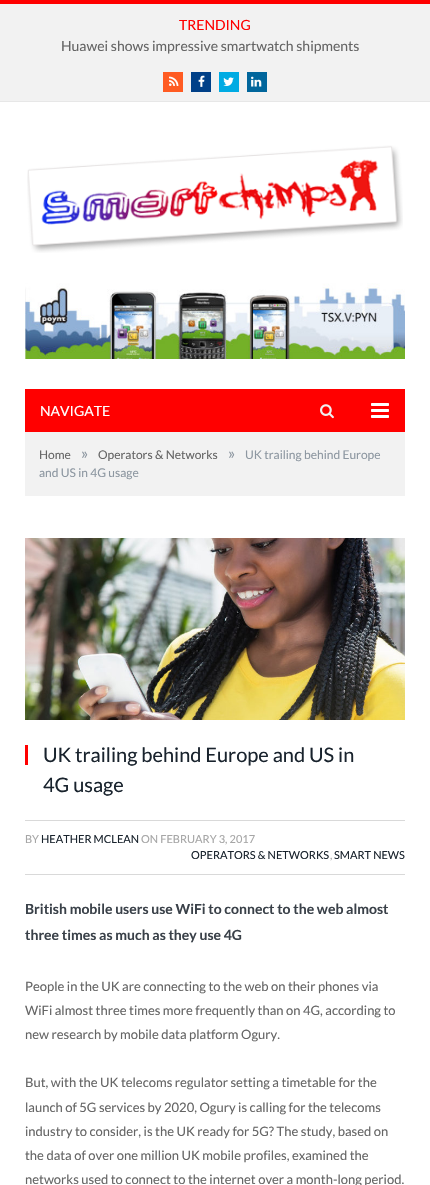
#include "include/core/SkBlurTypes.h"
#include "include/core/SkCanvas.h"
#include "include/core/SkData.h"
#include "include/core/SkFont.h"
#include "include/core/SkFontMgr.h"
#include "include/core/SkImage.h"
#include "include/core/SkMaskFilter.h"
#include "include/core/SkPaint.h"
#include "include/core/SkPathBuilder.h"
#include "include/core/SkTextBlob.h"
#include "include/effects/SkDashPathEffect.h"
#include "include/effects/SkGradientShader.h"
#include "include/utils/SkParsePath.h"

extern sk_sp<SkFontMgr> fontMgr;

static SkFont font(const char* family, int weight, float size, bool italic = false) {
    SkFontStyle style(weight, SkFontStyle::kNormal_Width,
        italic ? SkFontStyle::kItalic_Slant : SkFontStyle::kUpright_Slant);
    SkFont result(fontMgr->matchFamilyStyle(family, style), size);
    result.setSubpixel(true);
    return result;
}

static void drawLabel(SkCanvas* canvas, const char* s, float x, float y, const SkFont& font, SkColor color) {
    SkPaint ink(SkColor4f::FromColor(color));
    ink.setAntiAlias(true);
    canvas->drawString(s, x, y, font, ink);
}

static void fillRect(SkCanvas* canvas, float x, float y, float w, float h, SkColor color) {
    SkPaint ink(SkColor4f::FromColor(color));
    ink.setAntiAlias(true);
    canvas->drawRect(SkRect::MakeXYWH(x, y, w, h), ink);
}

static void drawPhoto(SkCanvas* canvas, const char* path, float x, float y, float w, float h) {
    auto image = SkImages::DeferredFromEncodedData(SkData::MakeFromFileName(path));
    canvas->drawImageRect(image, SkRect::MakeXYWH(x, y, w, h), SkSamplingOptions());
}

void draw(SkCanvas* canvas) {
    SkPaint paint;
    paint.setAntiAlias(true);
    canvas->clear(0xFFFFFFFF);
    fillRect(canvas, 0, 4, 430, 97, 0xFFF2F2F2);
    fillRect(canvas, 0, 0, 430, 4, 0xFFFF0000);
    fillRect(canvas, 0, 101, 430, 1, 0xFFE7E7E7);
    SkFont font1 = font("Lato", 400, 14);
    drawLabel(canvas, "TRENDING", 179, 30, font1, 0xFFFF0000);
    drawLabel(canvas, "Huawei shows impressive smartwatch shipments", 61, 51, font1, 0xFF656565);
    fillRect(canvas, 163, 72, 20, 20, 0xFFFF5B22);
    drawPhoto(canvas, "assets/img1.png", 169, 76, 10, 10);
    fillRect(canvas, 191, 72, 20, 20, 0xFF004088);
    drawPhoto(canvas, "assets/img2.png", 198, 75, 7, 12);
    fillRect(canvas, 219, 72, 20, 20, 0xFF00ABE3);
    drawPhoto(canvas, "assets/img3.png", 223, 77, 11, 9);
    fillRect(canvas, 247, 72, 20, 20, 0xFF01669C);
    drawPhoto(canvas, "assets/img4.png", 251, 76, 11, 11);
    drawPhoto(canvas, "assets/img5.png", 27, 145, 376, 108);
    drawPhoto(canvas, "assets/img6.png", 25, 283, 380, 76);
    fillRect(canvas, 25, 389, 380, 43, 0xFFFF0000);
    drawLabel(canvas, "NAVIGATE", 40, 416, font1, 0xFFFFFFFF);
    drawPhoto(canvas, "assets/img7.png", 320, 404, 14, 15);
    drawPhoto(canvas, "assets/img8.png", 371, 403, 18, 15);
    fillRect(canvas, 25, 432, 380, 64, 0xFFF2F2F2);
    SkFont font2 = font("Lato", 400, 12);
    drawLabel(canvas, "Home", 39, 459, font2, 0xFF656565);
    SkFont font3 = font("Lato", 400, 16);
    drawLabel(canvas, "»", 81, 459, font3, 0xFF8D97A1);
    drawLabel(canvas, "Operators & Networks", 98, 459, font2, 0xFF656565);
    drawLabel(canvas, "»", 228, 459, font3, 0xFF8D97A1);
    drawLabel(canvas, "UK trailing behind Europe", 245, 459, font2, 0xFF8D97A1);
    drawLabel(canvas, "and US in 4G usage", 39, 477, font2, 0xFF8D97A1);
    drawPhoto(canvas, "assets/img9.png", 25, 538, 380, 182);
    fillRect(canvas, 25, 745, 3, 20, 0xFFFF0000);
    SkFont font4 = font("Lato", 400, 20);
    drawLabel(canvas, "UK trailing behind Europe and US in", 43, 762, font4, 0xFF19232D);
    drawLabel(canvas, "4G usage", 43, 792, font4, 0xFF19232D);
    fillRect(canvas, 25, 820, 380, 1, 0xFFD9D9D9);
    fillRect(canvas, 25, 874, 380, 1, 0xFFD9D9D9);
    SkFont font5 = font("Lato", 400, 11);
    drawLabel(canvas, "BY", 25, 843, font5, 0xFFA6A6A6);
    drawLabel(canvas, "HEATHER MCLEAN", 41, 843, font5, 0xFF19232D);
    drawLabel(canvas, "ON FEBRUARY 3, 2017", 141, 843, font5, 0xFFA6A6A6);
    drawLabel(canvas, "OPERATORS & NETWORKS", 191, 859, font5, 0xFF19232D);
    drawLabel(canvas, ",", 330, 859, font5, 0xFFA6A6A6);
    drawLabel(canvas, "SMART NEWS", 334, 859, font5, 0xFF19232D);
    SkFont font6 = font("Lato", 700, 14);
    drawLabel(canvas, "British mobile users use WiFi to connect to the web almost", 25, 914, font6, 0xFF3A4149);
    drawLabel(canvas, "three times as much as they use 4G", 25, 940, font6, 0xFF3A4149);
    SkFont font7 = font("Lato", 400, 13);
    drawLabel(canvas, "People in the UK are connecting to the web on their phones via", 25, 991, font7, 0xFF656565);
    drawLabel(canvas, "WiFi almost three times more frequently than on 4G, according to", 25, 1015, font7, 0xFF656565);
    drawLabel(canvas, "new research by mobile data platform Ogury.", 25, 1039, font7, 0xFF656565);
    drawLabel(canvas, "But, with the UK telecoms regulator setting a timetable for the", 25, 1087, font7, 0xFF656565);
    drawLabel(canvas, "launch of 5G services by 2020, Ogury is calling for the telecoms", 25, 1112, font7, 0xFF656565);
    drawLabel(canvas, "industry to consider, is the UK ready for 5G? The study, based on", 25, 1136, font7, 0xFF656565);
    drawLabel(canvas, "the data of over one million UK mobile profiles, examined the", 25, 1160, font7, 0xFF656565);
    drawLabel(canvas, "networks used to connect to the internet over a month-long period.", 25, 1184, font7, 0xFF656565);
}
